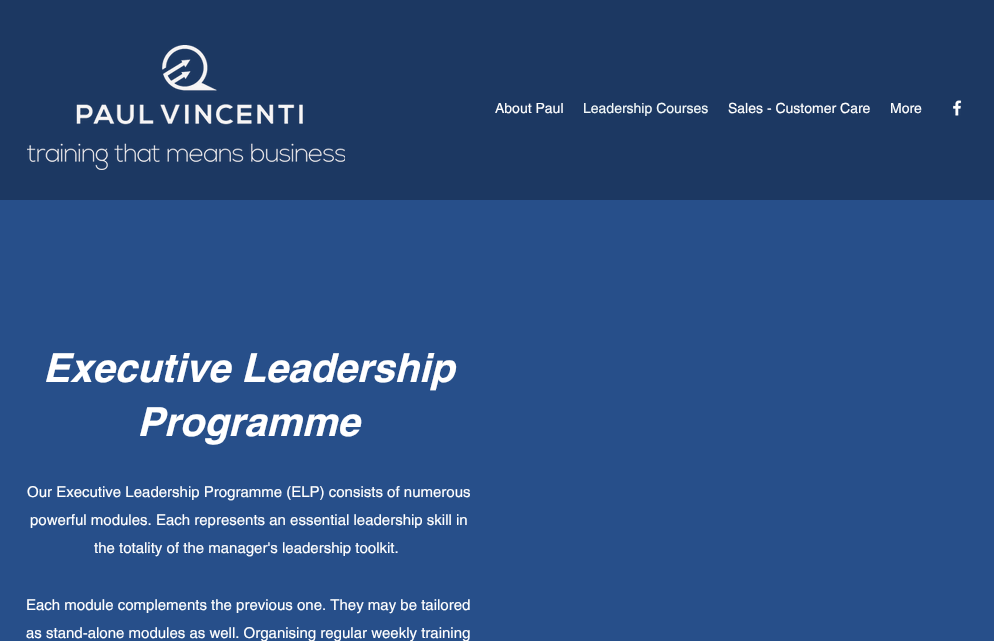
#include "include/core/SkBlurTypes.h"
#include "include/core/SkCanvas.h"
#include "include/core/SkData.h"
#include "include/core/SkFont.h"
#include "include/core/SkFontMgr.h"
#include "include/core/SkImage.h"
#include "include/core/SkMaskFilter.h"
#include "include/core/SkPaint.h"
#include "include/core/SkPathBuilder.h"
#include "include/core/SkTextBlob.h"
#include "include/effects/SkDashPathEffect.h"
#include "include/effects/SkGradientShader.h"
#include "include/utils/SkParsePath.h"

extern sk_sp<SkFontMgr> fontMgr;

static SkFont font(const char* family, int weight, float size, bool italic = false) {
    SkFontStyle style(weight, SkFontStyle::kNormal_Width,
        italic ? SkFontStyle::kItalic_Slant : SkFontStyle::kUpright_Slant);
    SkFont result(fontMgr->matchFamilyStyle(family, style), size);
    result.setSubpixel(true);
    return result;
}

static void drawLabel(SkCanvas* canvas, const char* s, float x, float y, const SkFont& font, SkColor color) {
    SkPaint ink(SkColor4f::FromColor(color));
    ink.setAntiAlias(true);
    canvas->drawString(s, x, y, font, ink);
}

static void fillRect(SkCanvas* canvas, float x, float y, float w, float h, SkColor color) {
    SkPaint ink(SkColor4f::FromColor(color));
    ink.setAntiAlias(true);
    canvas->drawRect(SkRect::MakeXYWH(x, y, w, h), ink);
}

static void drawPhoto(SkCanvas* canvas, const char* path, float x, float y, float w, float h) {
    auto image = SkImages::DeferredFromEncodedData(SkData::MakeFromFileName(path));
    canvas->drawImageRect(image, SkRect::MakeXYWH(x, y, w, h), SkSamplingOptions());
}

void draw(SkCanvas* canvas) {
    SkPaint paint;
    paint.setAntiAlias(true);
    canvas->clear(0xFF274F8A);
    fillRect(canvas, 0, 0, 994, 200, 0xFF1C3862);
    drawPhoto(canvas, "assets/img1.png", 27, 45, 318, 125);
    SkFont font1 = font("helvetica", 400, 14);
    drawLabel(canvas, "About Paul", 495, 113, font1, 0xFFFFFFFF);
    drawLabel(canvas, "Leadership Courses", 583, 113, font1, 0xFFF4FAFA);
    drawLabel(canvas, "Sales - Customer Care", 728, 113, font1, 0xFFFFFFFF);
    drawLabel(canvas, "More", 890, 113, font1, 0xFFFFFFFF);
    drawPhoto(canvas, "assets/img2.png", 953, 100, 9, 16);
    SkFont font2 = font("helvetica", 700, 40, true);
    drawLabel(canvas, "Executive Leadership", 43, 382, font2, 0xFFFFFFFF);
    drawLabel(canvas, "Programme", 137, 436, font2, 0xFFFFFFFF);
    SkFont font3 = font("helvetica", 400, 15);
    drawLabel(canvas, "Our Executive Leadership Programme (ELP) consists of numerous", 27, 497, font3, 0xFFFFFFFF);
    drawLabel(canvas, "powerful modules. Each represents an essential leadership skill in", 30, 525, font3, 0xFFFFFFFF);
    drawLabel(canvas, "the totality of the manager's leadership toolkit.", 94, 553, font3, 0xFFFFFFFF);
    drawLabel(canvas, "Each module complements the previous one. They may be tailored", 26, 610, font3, 0xFFFFFFFF);
    drawLabel(canvas, "as stand-alone modules as well. Organising regular weekly training", 26, 638, font3, 0xFFFFFFFF);
}
